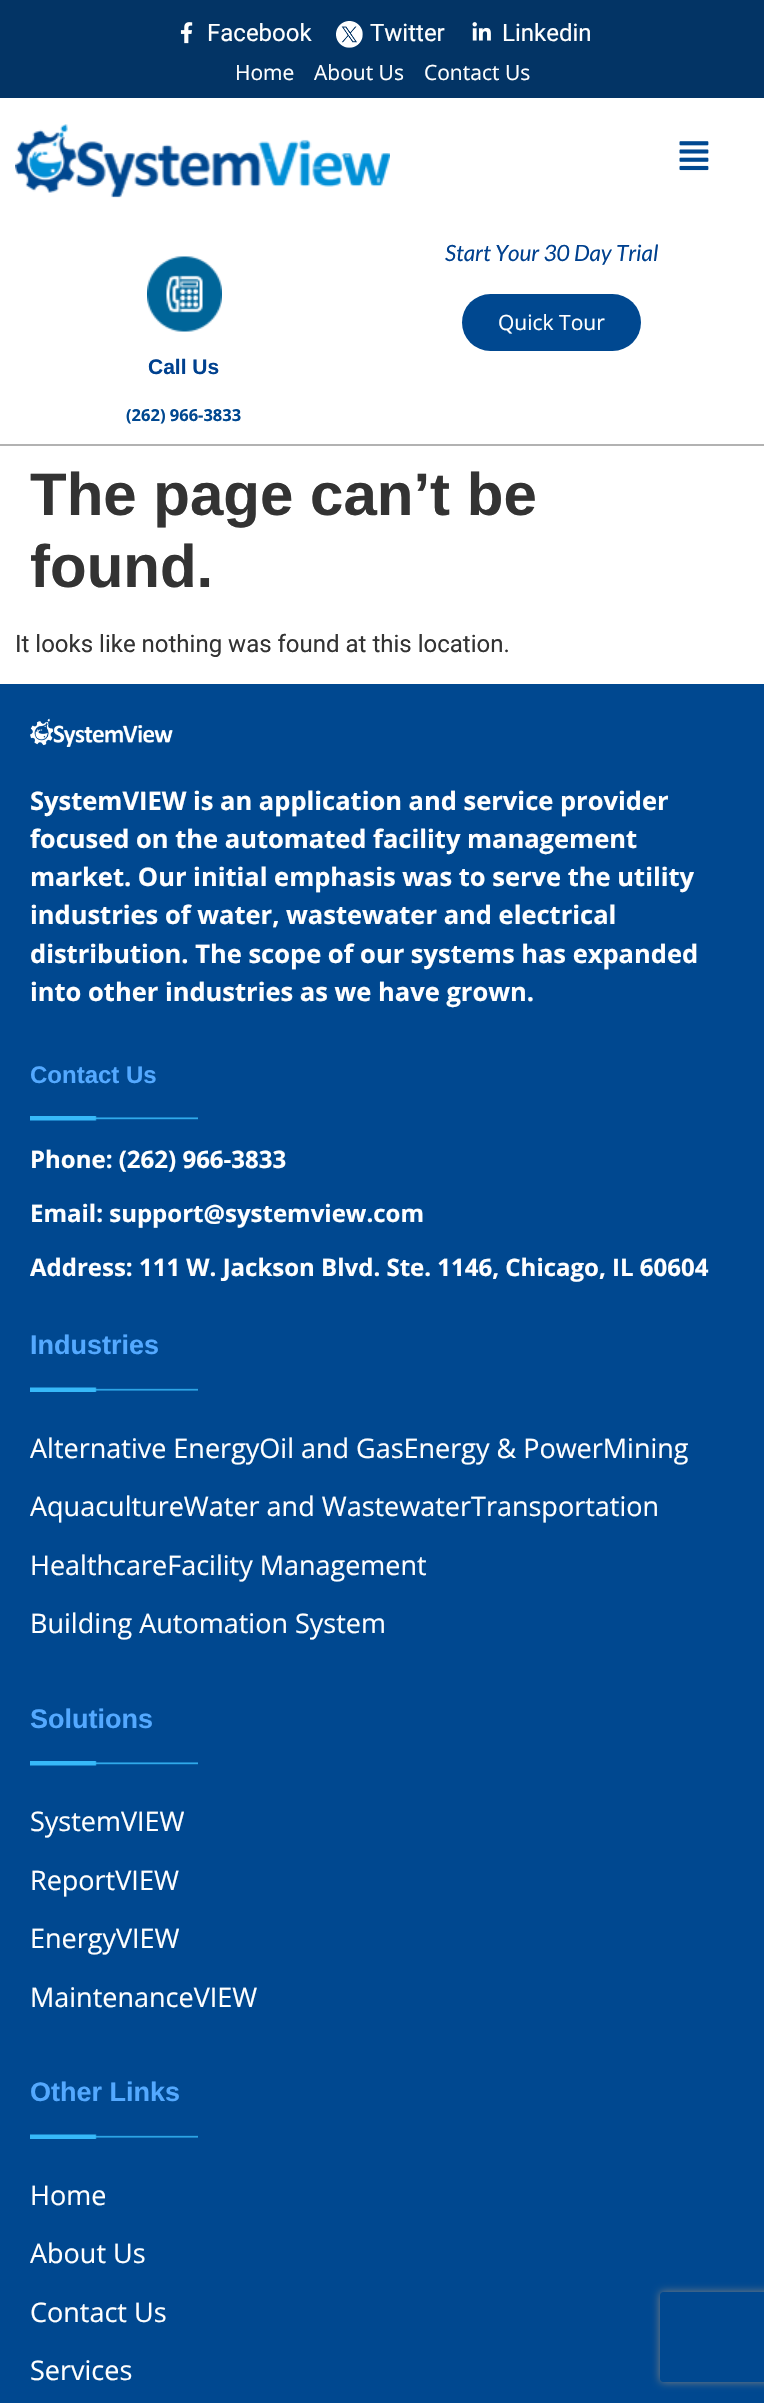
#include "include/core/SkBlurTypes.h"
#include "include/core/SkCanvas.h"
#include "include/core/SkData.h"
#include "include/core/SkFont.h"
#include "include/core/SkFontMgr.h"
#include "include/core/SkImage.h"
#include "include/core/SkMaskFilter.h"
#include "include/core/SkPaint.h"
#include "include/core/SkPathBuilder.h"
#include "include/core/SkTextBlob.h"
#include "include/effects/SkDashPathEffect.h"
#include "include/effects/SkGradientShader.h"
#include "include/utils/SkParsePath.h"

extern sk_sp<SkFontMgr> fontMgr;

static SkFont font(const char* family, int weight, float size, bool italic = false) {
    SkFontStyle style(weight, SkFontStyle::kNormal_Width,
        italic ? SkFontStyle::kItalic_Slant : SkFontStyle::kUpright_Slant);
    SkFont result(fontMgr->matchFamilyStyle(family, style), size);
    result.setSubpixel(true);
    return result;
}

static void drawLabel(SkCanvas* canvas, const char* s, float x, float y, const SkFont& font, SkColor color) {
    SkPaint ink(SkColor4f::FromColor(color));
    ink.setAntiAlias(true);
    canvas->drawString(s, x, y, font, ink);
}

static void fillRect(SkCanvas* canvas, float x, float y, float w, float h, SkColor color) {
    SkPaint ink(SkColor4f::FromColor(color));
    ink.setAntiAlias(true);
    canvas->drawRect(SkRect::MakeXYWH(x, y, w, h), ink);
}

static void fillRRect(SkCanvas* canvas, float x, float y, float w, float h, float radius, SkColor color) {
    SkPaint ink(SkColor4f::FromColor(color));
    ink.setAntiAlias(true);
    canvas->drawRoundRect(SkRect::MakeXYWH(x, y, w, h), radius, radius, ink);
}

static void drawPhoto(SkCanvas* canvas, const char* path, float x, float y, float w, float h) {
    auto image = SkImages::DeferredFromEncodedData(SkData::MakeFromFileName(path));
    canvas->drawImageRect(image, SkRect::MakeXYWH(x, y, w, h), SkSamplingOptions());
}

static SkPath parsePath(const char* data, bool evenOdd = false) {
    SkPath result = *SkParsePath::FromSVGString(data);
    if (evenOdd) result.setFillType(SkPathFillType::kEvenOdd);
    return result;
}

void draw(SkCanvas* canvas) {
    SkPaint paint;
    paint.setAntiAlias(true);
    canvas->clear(0xFFFFFFFF);
    fillRect(canvas, 0, 0, 764, 98, 0xFF033465);
    drawPhoto(canvas, "assets/img1.png", 180, 22, 13, 22);
    SkFont font1 = font("Roboto", 400, 24);
    drawLabel(canvas, "Facebook", 207, 41, font1, 0xFFFFFFFF);
    drawPhoto(canvas, "assets/img2.png", 336, 21, 27, 27);
    drawLabel(canvas, "Twitter", 370, 41, font1, 0xFFFFFFFF);
    drawPhoto(canvas, "assets/img3.png", 472, 22, 19, 19);
    drawLabel(canvas, "Linkedin", 502, 41, font1, 0xFFFFFFFF);
    SkFont font2 = font("Open Sans", 400, 21);
    drawLabel(canvas, "Home", 235, 80, font2, 0xFFFFFFFF);
    drawLabel(canvas, "About Us", 314, 80, font2, 0xFFFFFFFF);
    drawLabel(canvas, "Contact Us", 424, 80, font2, 0xFFFFFFFF);
    drawPhoto(canvas, "assets/img4.png", 15, 124, 375, 74);
    drawPhoto(canvas, "assets/img5.png", 679, 141, 30, 30);
    fillRect(canvas, 0, 444, 764, 2, 0xFFB2B2B2);
    SkFont font3 = font("Lato", 400, 22.5f, true);
    drawLabel(canvas, "Start Your 30 Day Trial", 445, 261, font3, 0xFF00418F);
    fillRRect(canvas, 462, 294, 179, 57, 28.5f, 0xFF004890);
    drawLabel(canvas, "Quick Tour", 498, 330, font2, 0xFFFFFFFF);
    drawPhoto(canvas, "assets/img6.png", 147, 256, 75, 76);
    SkFont font4 = font("Liberation Sans", 700, 21);
    drawLabel(canvas, "Call Us", 148, 374, font4, 0xFF00418F);
    SkFont font5 = font("Open Sans", 700, 16.5f);
    drawLabel(canvas, "(262) 966-3833", 126, 421, font5, 0xFF004890);
    SkFont font6 = font("Liberation Sans", 700, 60);
    drawLabel(canvas, "The page can’t be", 30, 515, font6, 0xFF333333);
    drawLabel(canvas, "found.", 30, 587, font6, 0xFF333333);
    drawLabel(canvas, "It looks like nothing was found at this location.", 15, 652, font1, 0xFF333333);
    fillRect(canvas, 0, 684, 764, 1719, 0xFF004890);
    drawPhoto(canvas, "assets/img7.png", 30, 718, 143, 29);
    SkFont font7 = font("Open Sans", 700, 25.5f);
    drawLabel(canvas, "SystemVIEW is an application and service provider", 30, 810, font7, 0xFFFFFFFF);
    drawLabel(canvas, "focused on the automated facility management", 30, 848, font7, 0xFFFFFFFF);
    drawLabel(canvas, "market. Our initial emphasis was to serve the utility", 30, 886, font7, 0xFFFFFFFF);
    drawLabel(canvas, "industries of water, wastewater and electrical", 30, 924, font7, 0xFFFFFFFF);
    drawLabel(canvas, "distribution. The scope of our systems has expanded", 30, 963, font7, 0xFFFFFFFF);
    drawLabel(canvas, "into other industries as we have grown.", 30, 1001, font7, 0xFFFFFFFF);
    SkFont font8 = font("Liberation Sans", 700, 24);
    drawLabel(canvas, "Contact Us", 30, 1083, font8, 0xFF54A9FF);
    drawPhoto(canvas, "assets/img8.png", 30, 1116, 168, 5);
    SkFont font9 = font("Open Sans", 700, 24);
    drawLabel(canvas, "Phone: (262) 966-3833", 30, 1168, font9, 0xFFFFFFFF);
    drawLabel(canvas, "Email: support@systemview.com", 30, 1222, font9, 0xFFFFFFFF);
    drawLabel(canvas, "Address: 111 W. Jackson Blvd. Ste. 1146, Chicago, IL 60604", 30, 1276, font9, 0xFFFFFFFF);
    SkFont font10 = font("Liberation Sans", 700, 27);
    drawLabel(canvas, "Industries", 30, 1354, font10, 0xFF54A9FF);
    drawPhoto(canvas, "assets/img9.png", 30, 1387, 168, 5);
    SkFont font11 = font("Open Sans", 400, 27);
    drawLabel(canvas, "Alternative EnergyOil and GasEnergy & PowerMining", 30, 1458, font11, 0xFFFFFFFF);
    drawLabel(canvas, "AquacultureWater and WastewaterTransportation", 30, 1516, font11, 0xFFFFFFFF);
    drawLabel(canvas, "HealthcareFacility Management", 30, 1575, font11, 0xFFFFFFFF);
    drawLabel(canvas, "Building Automation System", 30, 1633, font11, 0xFFFFFFFF);
    drawLabel(canvas, "Solutions", 30, 1728, font10, 0xFF54A9FF);
    drawPhoto(canvas, "assets/img8.png", 30, 1761, 168, 5);
    drawLabel(canvas, "SystemVIEW", 30, 1831, font11, 0xFFFFFFFF);
    drawLabel(canvas, "ReportVIEW", 30, 1890, font11, 0xFFFFFFFF);
    drawLabel(canvas, "EnergyVIEW", 30, 1948, font11, 0xFFFFFFFF);
    drawLabel(canvas, "MaintenanceVIEW", 30, 2007, font11, 0xFFFFFFFF);
    drawLabel(canvas, "Other Links", 30, 2101, font10, 0xFF54A9FF);
    drawPhoto(canvas, "assets/img9.png", 30, 2134, 168, 5);
    drawLabel(canvas, "Home", 30, 2205, font11, 0xFFFFFFFF);
    drawLabel(canvas, "About Us", 30, 2263, font11, 0xFFFFFFFF);
    drawLabel(canvas, "Contact Us", 30, 2322, font11, 0xFFFFFFFF);
    drawLabel(canvas, "Services", 30, 2380, font11, 0xFFFFFFFF);
    canvas->save();
    canvas->clipPath(parsePath("M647 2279H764V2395H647ZM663 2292H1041C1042.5 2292 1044 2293.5 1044 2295V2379C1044 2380.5 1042.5 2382 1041 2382H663C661.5 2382 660 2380.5 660 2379V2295C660 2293.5 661.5 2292 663 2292Z", true), true);
    paint.setColor(0xFF808080);
    paint.setMaskFilter(SkMaskFilter::MakeBlur(kNormal_SkBlurStyle, 4));
    canvas->drawRoundRect(SkRect::MakeXYWH(660, 2292, 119, 90), 3, 3, paint);
    paint.setMaskFilter(nullptr);
    canvas->restore();
}
